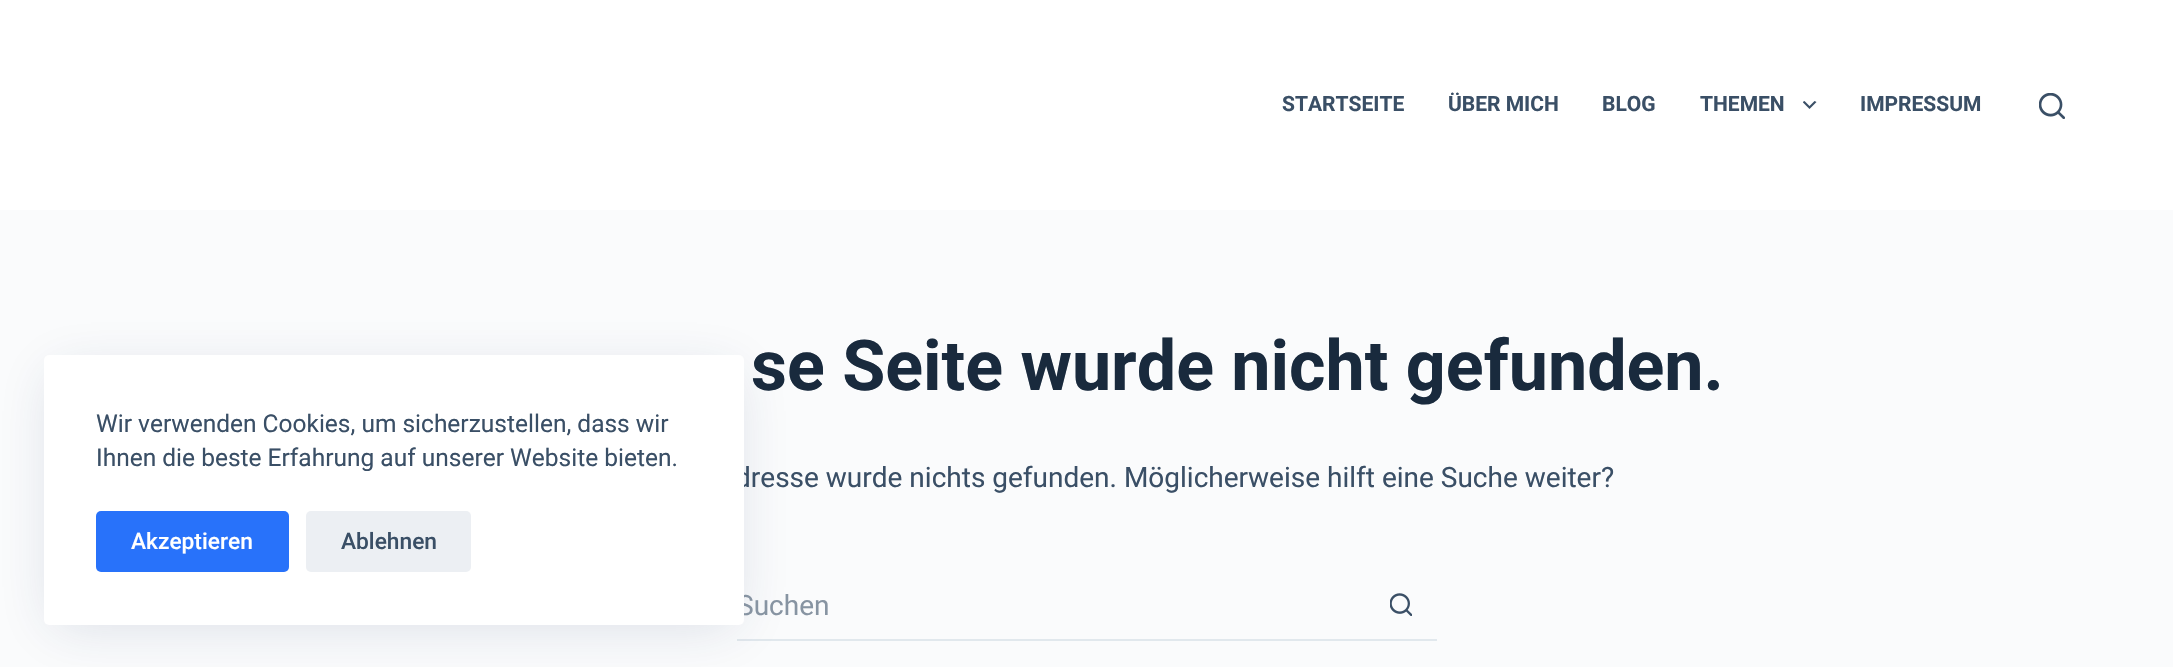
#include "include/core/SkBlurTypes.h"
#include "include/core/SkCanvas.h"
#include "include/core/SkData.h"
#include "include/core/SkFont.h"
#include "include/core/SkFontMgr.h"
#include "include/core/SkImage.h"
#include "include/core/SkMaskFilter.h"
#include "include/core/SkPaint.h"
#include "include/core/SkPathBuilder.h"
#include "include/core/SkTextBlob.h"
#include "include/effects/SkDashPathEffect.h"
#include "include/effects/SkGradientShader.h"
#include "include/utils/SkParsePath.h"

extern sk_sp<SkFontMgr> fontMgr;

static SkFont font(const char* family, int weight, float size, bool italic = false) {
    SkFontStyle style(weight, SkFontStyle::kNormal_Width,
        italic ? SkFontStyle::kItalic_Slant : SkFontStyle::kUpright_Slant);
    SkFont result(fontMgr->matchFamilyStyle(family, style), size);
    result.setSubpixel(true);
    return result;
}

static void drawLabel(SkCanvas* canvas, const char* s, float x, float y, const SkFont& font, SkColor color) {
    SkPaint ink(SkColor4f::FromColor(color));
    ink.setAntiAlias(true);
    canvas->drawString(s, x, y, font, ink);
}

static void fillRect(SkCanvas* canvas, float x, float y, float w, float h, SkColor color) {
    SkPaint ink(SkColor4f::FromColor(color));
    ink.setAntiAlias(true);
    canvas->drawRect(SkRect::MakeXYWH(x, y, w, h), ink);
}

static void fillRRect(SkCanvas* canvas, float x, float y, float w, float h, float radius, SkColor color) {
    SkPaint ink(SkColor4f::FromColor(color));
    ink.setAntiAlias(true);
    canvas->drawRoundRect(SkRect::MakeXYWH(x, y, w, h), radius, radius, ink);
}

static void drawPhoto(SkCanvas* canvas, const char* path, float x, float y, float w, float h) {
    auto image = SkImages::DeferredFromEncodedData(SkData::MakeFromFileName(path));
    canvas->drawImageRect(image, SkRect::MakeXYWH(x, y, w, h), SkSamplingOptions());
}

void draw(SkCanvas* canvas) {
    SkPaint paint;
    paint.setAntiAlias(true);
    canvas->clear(0xFFFAFBFC);
    fillRect(canvas, 737, 639, 700, 2, 0xFFE1E8ED);
    paint.setColor(0x26223865);
    paint.setMaskFilter(SkMaskFilter::MakeBlur(kNormal_SkBlurStyle, 26));
    canvas->drawRect(SkRect::MakeXYWH(53, 373, 682, 252), paint);
    paint.setMaskFilter(nullptr);
    SkFont font1 = font("Roboto", 400, 28);
    drawLabel(canvas, "dresse wurde nichts gefunden. Möglicherweise hilft eine Suche weiter?", 735, 487, font1, 0xFF3A4F66);
    drawLabel(canvas, "Suchen", 737, 615, font1, 0xFF8794A2);
    fillRRect(canvas, 44, 355, 700, 270, 5, 0xFFFFFFFF);
    SkFont font2 = font("Roboto", 400, 24.5f);
    drawLabel(canvas, "Wir verwenden Cookies, um sicherzustellen, dass wir", 96, 432, font2, 0xFF3A4F66);
    drawLabel(canvas, "Ihnen die beste Erfahrung auf unserer Website bieten.", 96, 466, font2, 0xFF3A4F66);
    fillRRect(canvas, 96, 511, 193, 61, 5, 0xFF2872FA);
    SkFont font3 = font("Roboto", 500, 22.75f);
    drawLabel(canvas, "Akzeptieren", 131, 549, font3, 0xFFFFFFFF);
    fillRRect(canvas, 306, 511, 165, 61, 5, 0xFFECEFF3);
    drawLabel(canvas, "Ablehnen", 341, 549, font3, 0xFF3A4F66);
    fillRect(canvas, 0, 0, 2173, 210, 0xFFFFFFFF);
    SkFont font4 = font("Roboto", 700, 21);
    drawLabel(canvas, "STARTSEITE", 1282, 111, font4, 0xFF3A4F66);
    drawLabel(canvas, "ÜBER MICH", 1448, 111, font4, 0xFF3A4F66);
    drawLabel(canvas, "BLOG", 1602, 111, font4, 0xFF3A4F66);
    drawLabel(canvas, "THEMEN", 1700, 111, font4, 0xFF3A4F66);
    drawPhoto(canvas, "assets/img1.png", 1803, 101, 14, 8);
    drawLabel(canvas, "IMPRESSUM", 1860, 111, font4, 0xFF3A4F66);
    drawPhoto(canvas, "assets/img2.png", 2039, 93, 26, 26);
    SkFont font5 = font("Roboto", 700, 70);
    drawLabel(canvas, "se Seite wurde nicht gefunden.", 751, 390, font5, 0xFF192A3D);
    drawPhoto(canvas, "assets/img3.png", 1390, 593, 22, 23);
}
